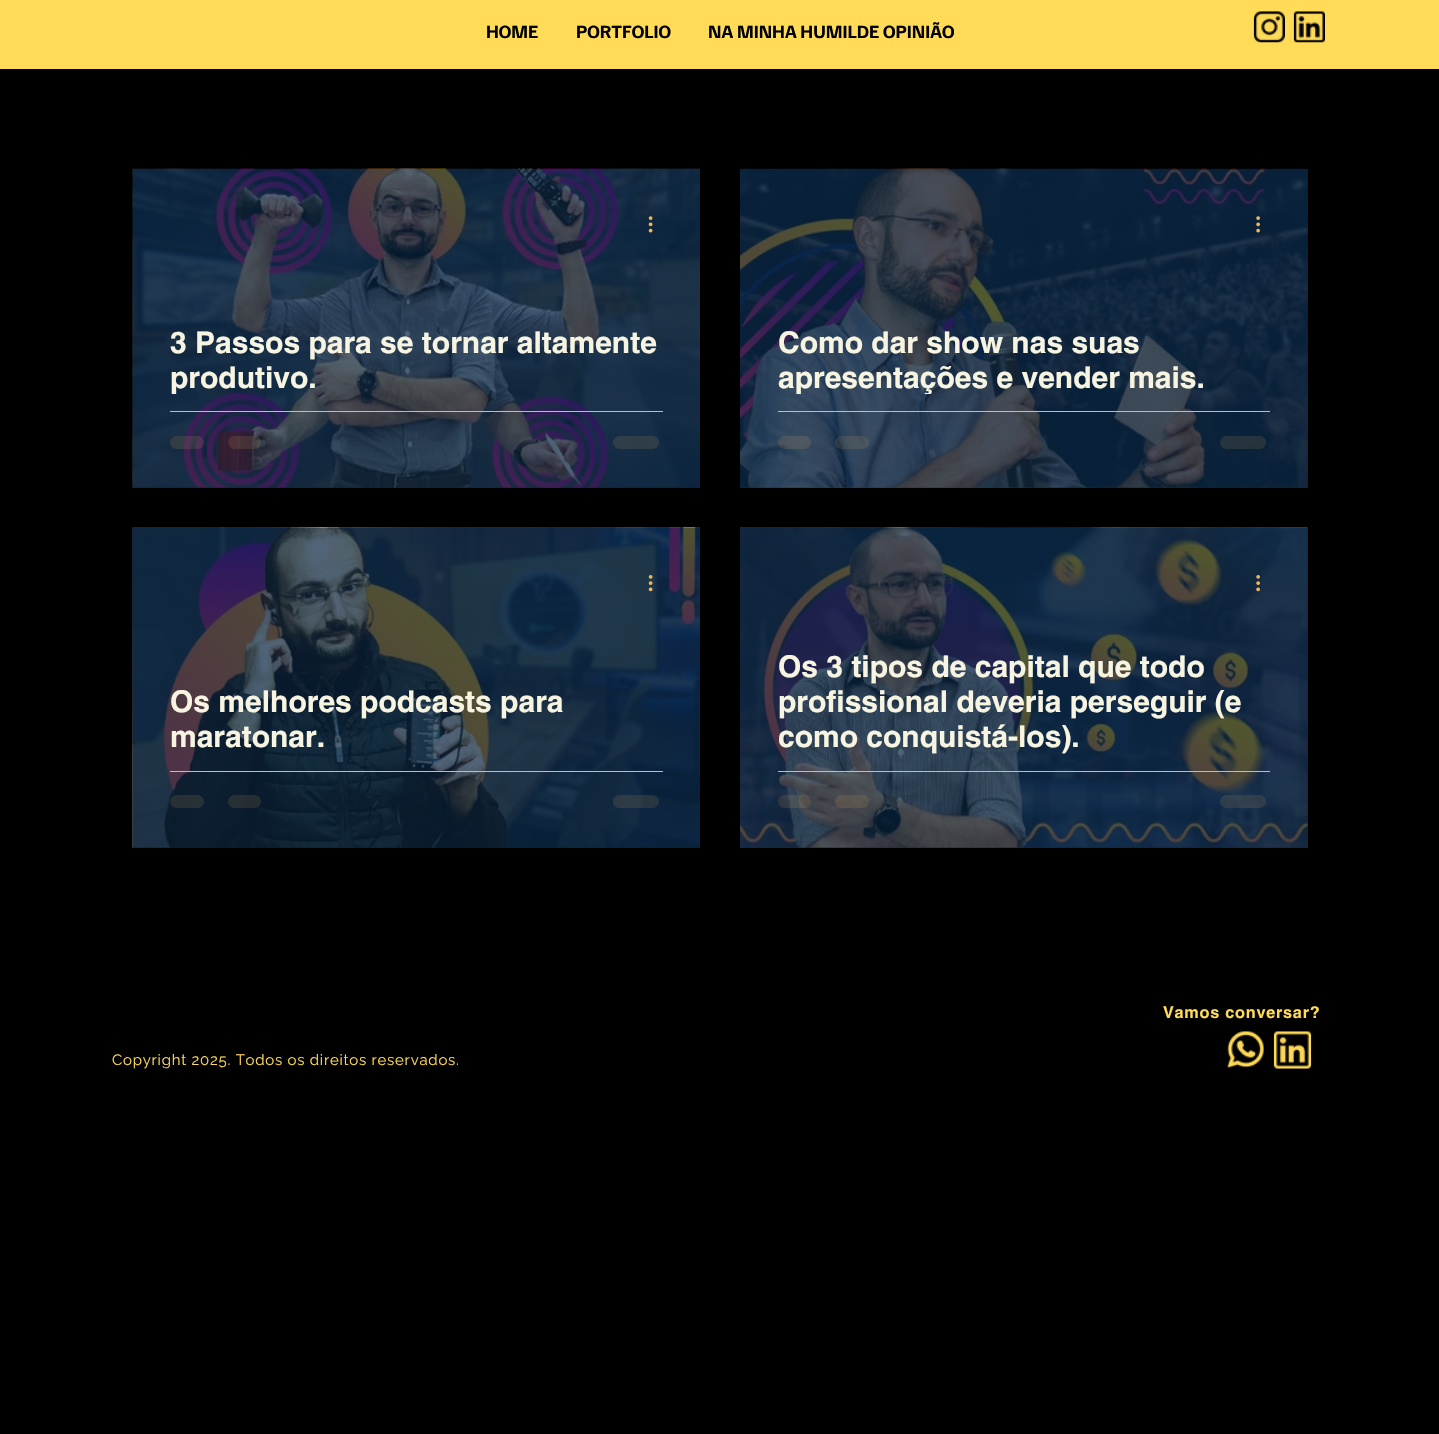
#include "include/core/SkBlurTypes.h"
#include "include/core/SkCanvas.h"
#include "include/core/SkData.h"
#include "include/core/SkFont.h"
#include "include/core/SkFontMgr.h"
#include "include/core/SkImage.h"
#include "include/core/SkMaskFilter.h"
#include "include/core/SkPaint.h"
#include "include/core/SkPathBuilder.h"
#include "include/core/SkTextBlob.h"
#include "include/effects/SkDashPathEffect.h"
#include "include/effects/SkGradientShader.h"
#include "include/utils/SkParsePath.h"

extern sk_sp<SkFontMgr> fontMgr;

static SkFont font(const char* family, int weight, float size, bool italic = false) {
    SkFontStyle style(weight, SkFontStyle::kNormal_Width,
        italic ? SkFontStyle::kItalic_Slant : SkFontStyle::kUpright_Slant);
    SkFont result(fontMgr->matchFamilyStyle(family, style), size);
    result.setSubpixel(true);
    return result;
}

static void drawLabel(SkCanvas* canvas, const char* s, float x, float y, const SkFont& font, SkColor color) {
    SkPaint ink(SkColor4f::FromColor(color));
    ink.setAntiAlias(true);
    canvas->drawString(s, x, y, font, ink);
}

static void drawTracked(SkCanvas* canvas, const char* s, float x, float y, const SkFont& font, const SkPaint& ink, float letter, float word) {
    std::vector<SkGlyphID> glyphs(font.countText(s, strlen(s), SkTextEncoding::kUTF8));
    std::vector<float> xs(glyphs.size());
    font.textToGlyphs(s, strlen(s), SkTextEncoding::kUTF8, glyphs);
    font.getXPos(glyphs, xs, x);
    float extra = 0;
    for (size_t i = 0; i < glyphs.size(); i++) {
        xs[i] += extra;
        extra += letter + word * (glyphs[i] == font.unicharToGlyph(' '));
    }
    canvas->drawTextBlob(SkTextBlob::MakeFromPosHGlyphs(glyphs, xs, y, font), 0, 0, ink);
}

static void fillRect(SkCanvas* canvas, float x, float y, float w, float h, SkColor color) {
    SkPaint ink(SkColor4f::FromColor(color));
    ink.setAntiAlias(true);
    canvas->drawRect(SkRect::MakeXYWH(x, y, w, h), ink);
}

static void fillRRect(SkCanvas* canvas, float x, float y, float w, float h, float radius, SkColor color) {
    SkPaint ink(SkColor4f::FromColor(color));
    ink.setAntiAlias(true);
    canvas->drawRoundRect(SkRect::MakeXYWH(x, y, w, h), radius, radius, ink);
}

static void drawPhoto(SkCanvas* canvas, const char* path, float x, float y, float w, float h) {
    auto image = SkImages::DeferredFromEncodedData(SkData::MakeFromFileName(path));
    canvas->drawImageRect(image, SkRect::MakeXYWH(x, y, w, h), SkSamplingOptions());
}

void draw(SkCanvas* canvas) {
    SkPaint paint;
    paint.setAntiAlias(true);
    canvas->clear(0xFF000000);
    fillRect(canvas, 0, 0, 1439, 69, 0xFFFFDB57);
    SkFont font1 = font("Familjen Grotesk", 700, 18.75f);
    drawLabel(canvas, "HOME", 486, 38, font1, 0xFF000000);
    drawLabel(canvas, "PORTFOLIO", 576, 38, font1, 0xFF000000);
    drawLabel(canvas, "NA MINHA HUMILDE OPINIÃO", 708, 38, font1, 0xFF000000);
    drawPhoto(canvas, "assets/img1.png", 1253, 11, 32, 32);
    drawPhoto(canvas, "assets/img2.png", 1293, 11, 32, 32);
    drawPhoto(canvas, "assets/img4.png", 133, 487, 567, 1);
    drawPhoto(canvas, "assets/img3.png", 132, 168, 568, 320);
    drawPhoto(canvas, "assets/img5.png", 648, 216, 5, 17);
    SkFont font2 = font("helvetica", 700, 30);
    drawLabel(canvas, "3 Passos para se tornar altamente", 170, 353, font2, 0xFFF7F5E1);
    canvas->save();
    canvas->clipRect(SkRect::MakeXYWH(170, 324, 493, 70));
    drawLabel(canvas, "produtivo.", 170, 388, font2, 0xFFF7F5E1);
    canvas->restore();
    fillRect(canvas, 170, 411, 493, 1, 0xFFEFB758);
    fillRRect(canvas, 170, 436, 34, 13, 6.5f, 0x1FEFB758);
    fillRRect(canvas, 228, 436, 33, 13, 6.5f, 0x1FEFB758);
    fillRRect(canvas, 613, 436, 46, 13, 6.5f, 0x1FEFB758);
    fillRect(canvas, 740, 169, 568, 319, 0xFF06192C);
    drawPhoto(canvas, "assets/img7.png", 740, 169, 568, 319);
    drawPhoto(canvas, "assets/img6.png", 740, 168, 568, 320);
    drawPhoto(canvas, "assets/img8.png", 1256, 216, 4, 17);
    drawLabel(canvas, "Como dar show nas suas", 778, 353, font2, 0xFFF7F5E1);
    canvas->save();
    canvas->clipRect(SkRect::MakeXYWH(778, 324, 492, 70));
    drawLabel(canvas, "apresentações e vender mais.", 778, 388, font2, 0xFFF7F5E1);
    canvas->restore();
    fillRect(canvas, 778, 411, 492, 1, 0xFFEFB758);
    fillRRect(canvas, 778, 436, 33, 13, 6.5f, 0x1FEFB758);
    fillRRect(canvas, 835, 436, 34, 13, 6.5f, 0x1FEFB758);
    fillRRect(canvas, 1220, 436, 46, 13, 6.5f, 0x1FEFB758);
    fillRect(canvas, 133, 847, 567, 1, 0xFF06192C);
    drawPhoto(canvas, "assets/img9.png", 132, 527, 568, 321);
    drawPhoto(canvas, "assets/img10.png", 132, 527, 568, 321);
    drawPhoto(canvas, "assets/img11.png", 648, 575, 5, 17);
    drawLabel(canvas, "Os melhores podcasts para", 170, 712, font2, 0xFFF7F5E1);
    drawLabel(canvas, "maratonar.", 170, 747, font2, 0xFFF7F5E1);
    fillRect(canvas, 170, 771, 493, 1, 0xFFEFB758);
    fillRRect(canvas, 170, 795, 34, 13, 6.5f, 0x1FEFB758);
    fillRRect(canvas, 228, 795, 33, 13, 6.5f, 0x1FEFB758);
    fillRRect(canvas, 613, 795, 46, 13, 6.5f, 0x1FEFB758);
    fillRect(canvas, 740, 528, 568, 320, 0xFF06192C);
    drawPhoto(canvas, "assets/img12.png", 740, 527, 568, 321);
    drawPhoto(canvas, "assets/img13.png", 740, 527, 568, 321);
    drawPhoto(canvas, "assets/img14.png", 1256, 575, 4, 17);
    drawLabel(canvas, "Os 3 tipos de capital que todo", 778, 677, font2, 0xFFF7F5E1);
    drawLabel(canvas, "profissional deveria perseguir (e", 778, 712, font2, 0xFFF7F5E1);
    drawLabel(canvas, "como conquistá-los).", 778, 747, font2, 0xFFF7F5E1);
    fillRect(canvas, 778, 771, 492, 1, 0xFFEFB758);
    fillRRect(canvas, 778, 795, 33, 13, 6.5f, 0x1FEFB758);
    fillRRect(canvas, 835, 795, 34, 13, 6.5f, 0x1FEFB758);
    fillRRect(canvas, 1220, 795, 46, 13, 6.5f, 0x1FEFB758);
    SkFont font3 = font("helvetica", 700, 16.25f);
    paint.setColor(0xFFFFDB57);
    drawTracked(canvas, "Vamos conversar?", 1163, 1018, font3, paint, 0.75f, 0);
    SkFont font4 = font("Raleway", 400, 15);
    drawTracked(canvas, "Copyright 2025. Todos os direitos reservados.", 112, 1065, font4, paint, 0.75f, 0);
    drawPhoto(canvas, "assets/img15.png", 1227, 1031, 37, 37);
    drawPhoto(canvas, "assets/img16.png", 1273, 1031, 39, 38);
}
